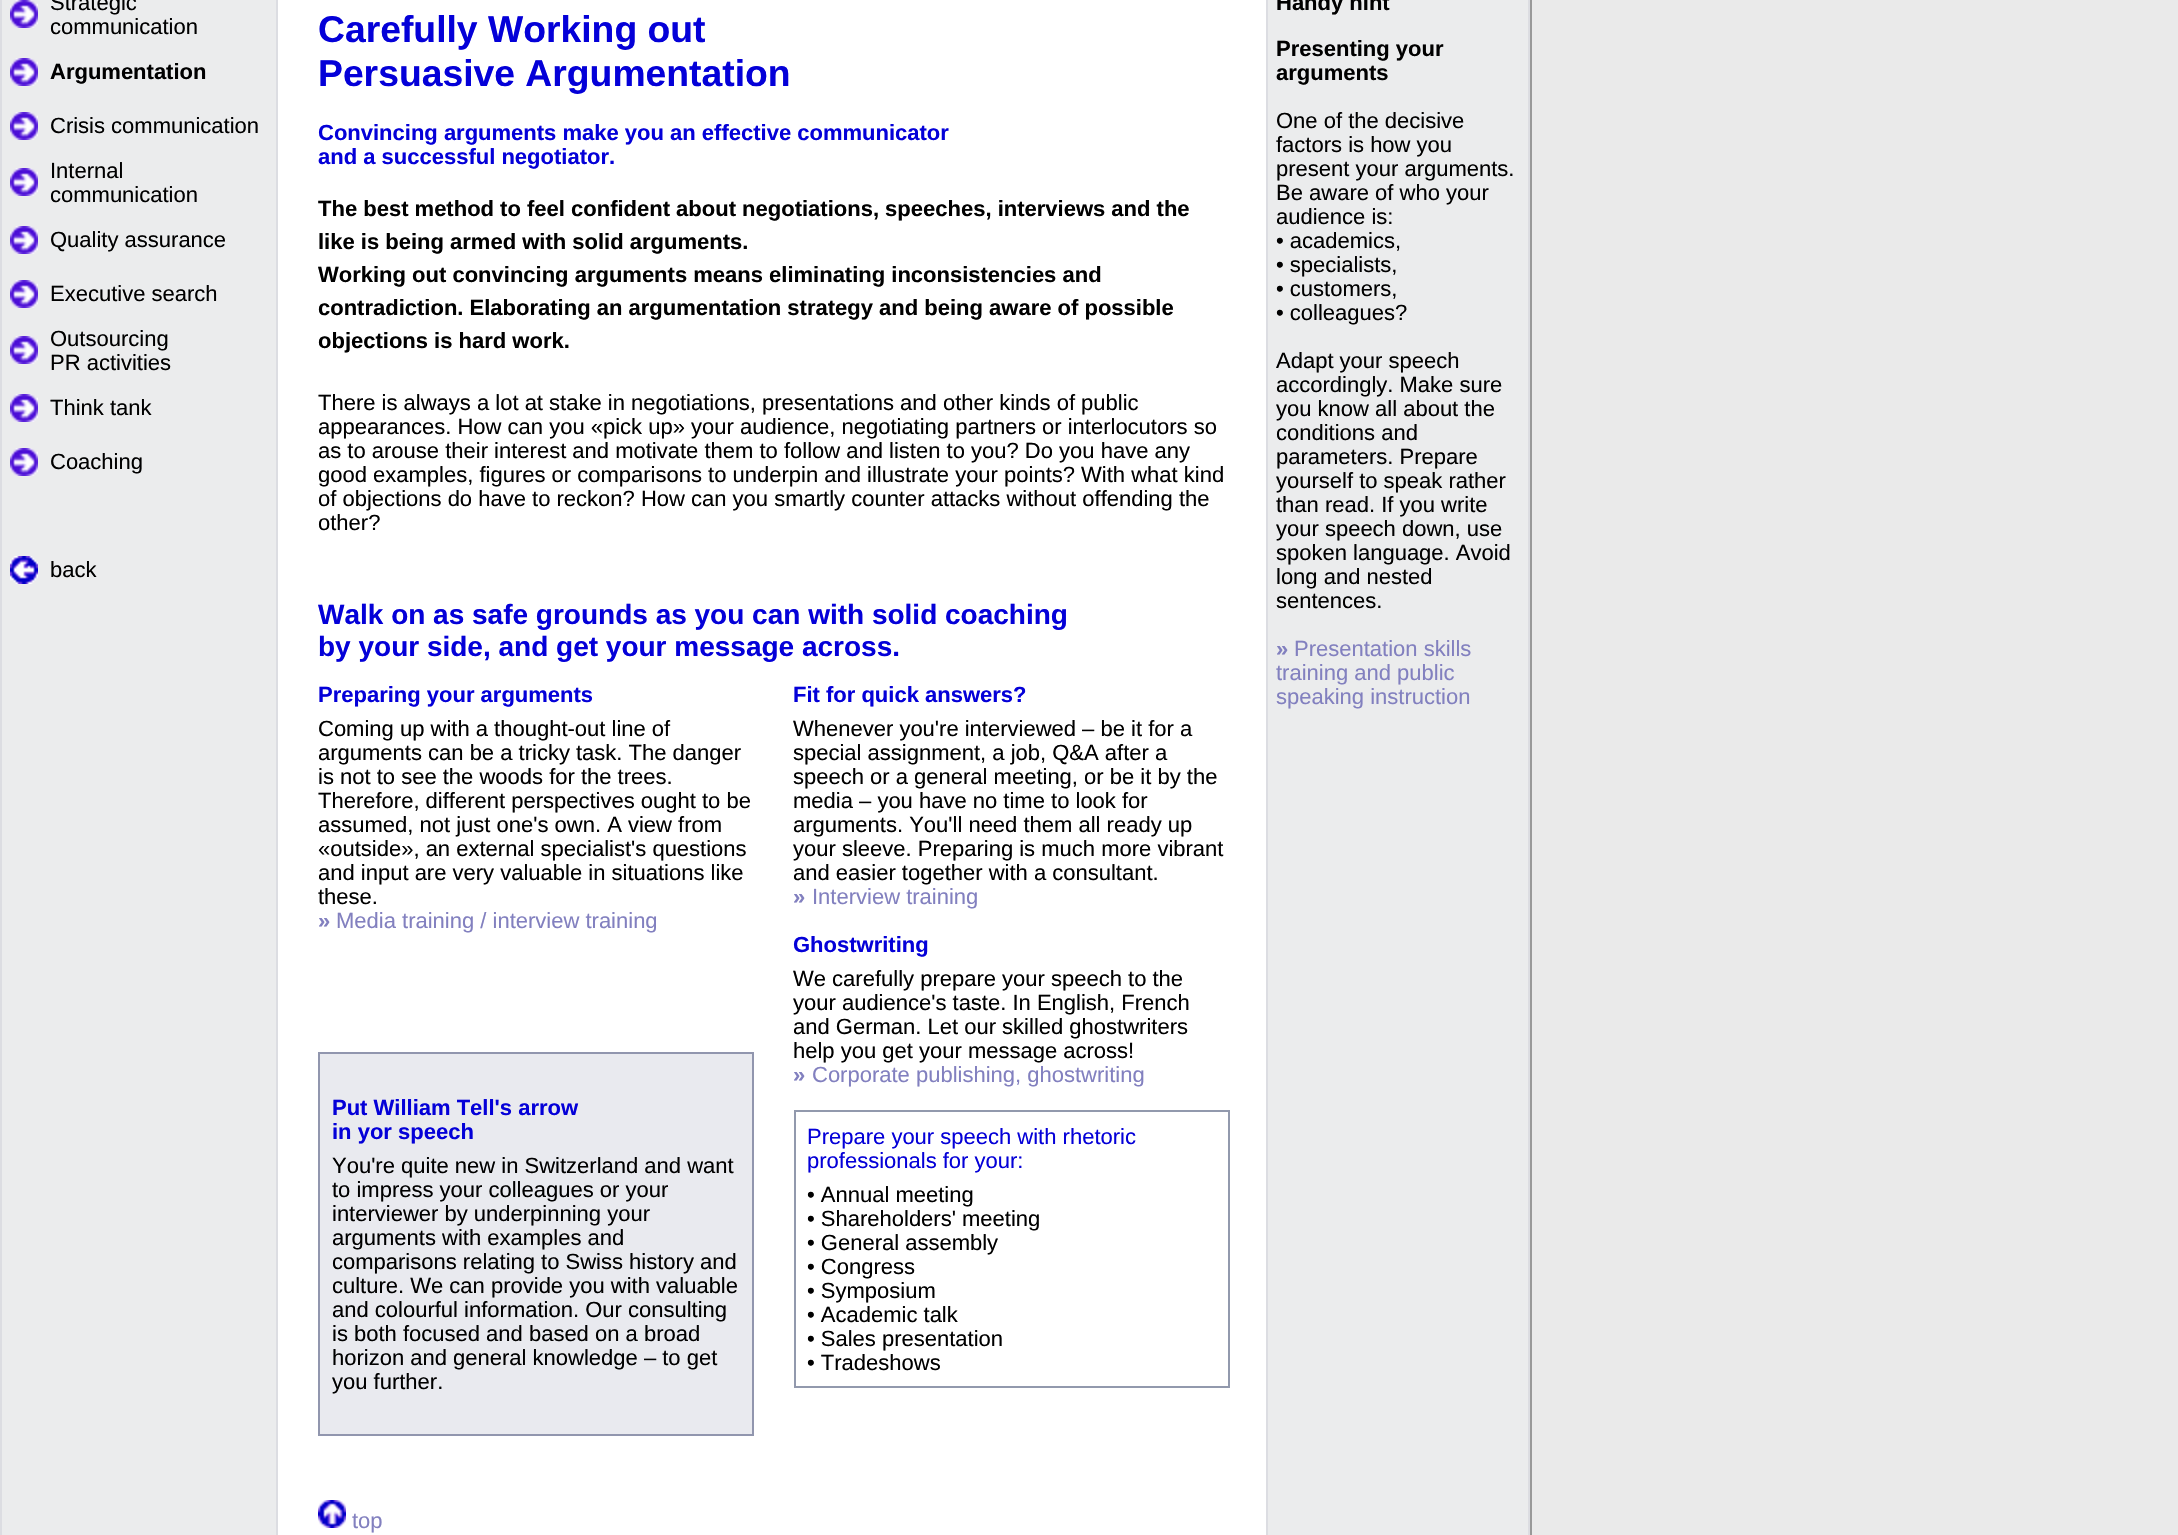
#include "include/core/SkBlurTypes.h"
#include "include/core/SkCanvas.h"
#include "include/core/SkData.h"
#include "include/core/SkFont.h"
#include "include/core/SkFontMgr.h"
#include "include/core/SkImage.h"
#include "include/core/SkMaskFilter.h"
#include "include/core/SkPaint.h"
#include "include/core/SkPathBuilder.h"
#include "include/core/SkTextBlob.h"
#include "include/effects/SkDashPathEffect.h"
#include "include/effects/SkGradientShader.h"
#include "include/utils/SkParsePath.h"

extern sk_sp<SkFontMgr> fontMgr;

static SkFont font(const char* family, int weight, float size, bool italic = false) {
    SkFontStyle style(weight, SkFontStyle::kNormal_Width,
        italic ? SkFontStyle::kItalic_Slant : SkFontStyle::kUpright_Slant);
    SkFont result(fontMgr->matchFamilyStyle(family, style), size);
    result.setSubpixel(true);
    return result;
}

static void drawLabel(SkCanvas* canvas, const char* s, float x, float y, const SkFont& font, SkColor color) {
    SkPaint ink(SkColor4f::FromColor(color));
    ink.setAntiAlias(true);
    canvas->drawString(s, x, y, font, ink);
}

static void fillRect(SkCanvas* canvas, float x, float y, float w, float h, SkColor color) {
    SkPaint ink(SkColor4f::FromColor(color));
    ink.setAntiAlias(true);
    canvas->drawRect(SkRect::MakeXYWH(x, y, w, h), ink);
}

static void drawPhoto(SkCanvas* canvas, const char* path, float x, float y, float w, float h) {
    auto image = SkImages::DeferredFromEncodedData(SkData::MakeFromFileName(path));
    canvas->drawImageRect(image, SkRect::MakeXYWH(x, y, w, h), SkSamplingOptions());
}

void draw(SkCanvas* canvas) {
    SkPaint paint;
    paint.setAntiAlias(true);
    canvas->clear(0xFFEAEAEA);
    fillRect(canvas, 0, 0, 2, 1535, 0xFFDCDDE2);
    fillRect(canvas, 2, 0, 274, 1535, 0xFFEBECED);
    drawPhoto(canvas, "assets/img1.png", 10, 0, 28, 28);
    SkFont font1 = font("Liberation Sans", 400, 22);
    drawLabel(canvas, "Strategic", 50, 10, font1, 0xFF000000);
    drawLabel(canvas, "communication", 50, 34, font1, 0xFF000000);
    drawPhoto(canvas, "assets/img1.png", 10, 58, 28, 28);
    SkFont font2 = font("Liberation Sans", 700, 22);
    drawLabel(canvas, "Argumentation", 50, 79, font2, 0xFF000000);
    drawPhoto(canvas, "assets/img1.png", 10, 112, 28, 28);
    drawLabel(canvas, "Crisis communication", 50, 133, font1, 0xFF000000);
    drawPhoto(canvas, "assets/img1.png", 10, 168, 28, 28);
    drawLabel(canvas, "Internal", 50, 178, font1, 0xFF000000);
    drawLabel(canvas, "communication", 50, 202, font1, 0xFF000000);
    drawPhoto(canvas, "assets/img1.png", 10, 226, 28, 28);
    drawLabel(canvas, "Quality assurance", 50, 247, font1, 0xFF000000);
    drawPhoto(canvas, "assets/img1.png", 10, 280, 28, 28);
    drawLabel(canvas, "Executive search", 50, 301, font1, 0xFF000000);
    drawPhoto(canvas, "assets/img1.png", 10, 336, 28, 28);
    drawLabel(canvas, "Outsourcing", 50, 346, font1, 0xFF000000);
    drawLabel(canvas, "PR activities", 50, 370, font1, 0xFF000000);
    drawPhoto(canvas, "assets/img1.png", 10, 394, 28, 28);
    drawLabel(canvas, "Think tank", 50, 415, font1, 0xFF000000);
    drawPhoto(canvas, "assets/img1.png", 10, 448, 28, 28);
    drawLabel(canvas, "Coaching", 50, 469, font1, 0xFF000000);
    drawPhoto(canvas, "assets/img2.png", 10, 556, 28, 28);
    drawLabel(canvas, "back", 50, 577, font1, 0xFF000000);
    fillRect(canvas, 278, 0, 988, 2, 0xFFFFFFFF);
    fillRect(canvas, 1266, 0, 2, 1535, 0xFFDCDDE2);
    fillRect(canvas, 1268, 0, 260, 1535, 0xFFEBECED);
    drawLabel(canvas, "Handy hint", 1276, 10, font2, 0xFF000000);
    drawLabel(canvas, "Presenting your", 1276, 56, font2, 0xFF000000);
    drawLabel(canvas, "arguments", 1276, 80, font2, 0xFF000000);
    drawLabel(canvas, "One of the decisive", 1276, 128, font1, 0xFF000000);
    drawLabel(canvas, "factors is how you", 1276, 152, font1, 0xFF000000);
    drawLabel(canvas, "present your arguments.", 1276, 176, font1, 0xFF000000);
    drawLabel(canvas, "Be aware of who your", 1276, 200, font1, 0xFF000000);
    drawLabel(canvas, "audience is:", 1276, 224, font1, 0xFF000000);
    drawLabel(canvas, "• academics,", 1276, 248, font1, 0xFF000000);
    drawLabel(canvas, "• specialists,", 1276, 272, font1, 0xFF000000);
    drawLabel(canvas, "• customers,", 1276, 296, font1, 0xFF000000);
    drawLabel(canvas, "• colleagues?", 1276, 320, font1, 0xFF000000);
    drawLabel(canvas, "Adapt your speech", 1276, 368, font1, 0xFF000000);
    drawLabel(canvas, "accordingly. Make sure", 1276, 392, font1, 0xFF000000);
    drawLabel(canvas, "you know all about the", 1276, 416, font1, 0xFF000000);
    drawLabel(canvas, "conditions and", 1276, 440, font1, 0xFF000000);
    drawLabel(canvas, "parameters. Prepare", 1276, 464, font1, 0xFF000000);
    drawLabel(canvas, "yourself to speak rather", 1276, 488, font1, 0xFF000000);
    drawLabel(canvas, "than read. If you write", 1276, 512, font1, 0xFF000000);
    drawLabel(canvas, "your speech down, use", 1276, 536, font1, 0xFF000000);
    drawLabel(canvas, "spoken language. Avoid", 1276, 560, font1, 0xFF000000);
    drawLabel(canvas, "long and nested", 1276, 584, font1, 0xFF000000);
    drawLabel(canvas, "sentences.", 1276, 608, font1, 0xFF000000);
    drawLabel(canvas, "»", 1276, 656, font2, 0xFF8280BF);
    drawLabel(canvas, "Presentation skills", 1294, 656, font1, 0xFF8280BF);
    drawLabel(canvas, "training and public", 1276, 680, font1, 0xFF8280BF);
    drawLabel(canvas, "speaking instruction", 1276, 704, font1, 0xFF8280BF);
    fillRect(canvas, 276, 0, 2, 1535, 0xFFDCDDE2);
    fillRect(canvas, 278, 2, 40, 1533, 0xFFFFFFFF);
    fillRect(canvas, 318, 2, 912, 1533, 0xFFFFFFFF);
    SkFont font3 = font("Liberation Sans", 700, 37.3f);
    drawLabel(canvas, "Carefully Working out", 318, 42, font3, 0xFF0400D8);
    drawLabel(canvas, "Persuasive Argumentation", 318, 86, font3, 0xFF0400D8);
    fillRect(canvas, 1230, 2, 36, 1533, 0xFFFFFFFF);
    fillRect(canvas, 1528, 0, 2, 1535, 0xFFDCDDE2);
    fillRect(canvas, 1530, 0, 2, 1535, 0xFF999999);
    drawLabel(canvas, "Convincing arguments make you an effective communicator", 318, 140, font2, 0xFF0400D8);
    drawLabel(canvas, "and a successful negotiator.", 318, 164, font2, 0xFF0400D8);
    drawLabel(canvas, "The best method to feel confident about negotiations, speeches, interviews and the", 318, 216, font2, 0xFF000000);
    drawLabel(canvas, "like is being armed with solid arguments.", 318, 249, font2, 0xFF000000);
    drawLabel(canvas, "Working out convincing arguments means eliminating inconsistencies and", 318, 282, font2, 0xFF000000);
    drawLabel(canvas, "contradiction. Elaborating an argumentation strategy and being aware of possible", 318, 315, font2, 0xFF000000);
    drawLabel(canvas, "objections is hard work.", 318, 348, font2, 0xFF000000);
    drawLabel(canvas, "There is always a lot at stake in negotiations, presentations and other kinds of public", 318, 410, font1, 0xFF000000);
    drawLabel(canvas, "appearances. How can you «pick up» your audience, negotiating partners or interlocutors so", 318, 434, font1, 0xFF000000);
    drawLabel(canvas, "as to arouse their interest and motivate them to follow and listen to you? Do you have any", 318, 458, font1, 0xFF000000);
    drawLabel(canvas, "good examples, figures or comparisons to underpin and illustrate your points? With what kind", 318, 482, font1, 0xFF000000);
    drawLabel(canvas, "of objections do have to reckon? How can you smartly counter attacks without offending the", 318, 506, font1, 0xFF000000);
    drawLabel(canvas, "other?", 318, 530, font1, 0xFF000000);
    SkFont font4 = font("Liberation Sans", 700, 28);
    drawLabel(canvas, "Walk on as safe grounds as you can with solid coaching", 318, 624, font4, 0xFF0400D8);
    drawLabel(canvas, "by your side, and get your message across.", 318, 656, font4, 0xFF0400D8);
    drawLabel(canvas, "Preparing your arguments", 318, 702, font2, 0xFF0400D8);
    drawLabel(canvas, "Coming up with a thought-out line of", 318, 736, font1, 0xFF000000);
    drawLabel(canvas, "arguments can be a tricky task. The danger", 318, 760, font1, 0xFF000000);
    drawLabel(canvas, "is not to see the woods for the trees.", 318, 784, font1, 0xFF000000);
    drawLabel(canvas, "Therefore, different perspectives ought to be", 318, 808, font1, 0xFF000000);
    drawLabel(canvas, "assumed, not just one's own. A view from", 318, 832, font1, 0xFF000000);
    drawLabel(canvas, "«outside», an external specialist's questions", 318, 856, font1, 0xFF000000);
    drawLabel(canvas, "and input are very valuable in situations like", 318, 880, font1, 0xFF000000);
    drawLabel(canvas, "these.", 318, 904, font1, 0xFF000000);
    drawLabel(canvas, "»", 318, 928, font2, 0xFF8280BF);
    drawLabel(canvas, "Media training / interview training", 336, 928, font1, 0xFF8280BF);
    paint.setColor(0xFFE9EAEF);
    canvas->drawRect(SkRect::MakeXYWH(319, 1053, 434, 382), paint);
    paint.setStroke(true);
    paint.setStrokeWidth(2);
    paint.setColor(0xFF9196AE);
    canvas->drawRect(SkRect::MakeXYWH(319, 1053, 434, 382), paint);
    drawLabel(canvas, "Put William Tell's arrow", 332, 1115, font2, 0xFF0400D8);
    drawLabel(canvas, "in yor speech", 332, 1139, font2, 0xFF0400D8);
    drawLabel(canvas, "You're quite new in Switzerland and want", 332, 1173, font1, 0xFF000000);
    drawLabel(canvas, "to impress your colleagues or your", 332, 1197, font1, 0xFF000000);
    drawLabel(canvas, "interviewer by underpinning your", 332, 1221, font1, 0xFF000000);
    drawLabel(canvas, "arguments with examples and", 332, 1245, font1, 0xFF000000);
    drawLabel(canvas, "comparisons relating to Swiss history and", 332, 1269, font1, 0xFF000000);
    drawLabel(canvas, "culture. We can provide you with valuable", 332, 1293, font1, 0xFF000000);
    drawLabel(canvas, "and colourful information. Our consulting", 332, 1317, font1, 0xFF000000);
    drawLabel(canvas, "is both focused and based on a broad", 332, 1341, font1, 0xFF000000);
    drawLabel(canvas, "horizon and general knowledge – to get", 332, 1365, font1, 0xFF000000);
    drawLabel(canvas, "you further.", 332, 1389, font1, 0xFF000000);
    drawLabel(canvas, "Fit for quick answers?", 793, 702, font2, 0xFF0400D8);
    drawLabel(canvas, "Whenever you're interviewed – be it for a", 793, 736, font1, 0xFF000000);
    drawLabel(canvas, "special assignment, a job, Q&A after a", 793, 760, font1, 0xFF000000);
    drawLabel(canvas, "speech or a general meeting, or be it by the", 793, 784, font1, 0xFF000000);
    drawLabel(canvas, "media – you have no time to look for", 793, 808, font1, 0xFF000000);
    drawLabel(canvas, "arguments. You'll need them all ready up", 793, 832, font1, 0xFF000000);
    drawLabel(canvas, "your sleeve. Preparing is much more vibrant", 793, 856, font1, 0xFF000000);
    drawLabel(canvas, "and easier together with a consultant.", 793, 880, font1, 0xFF000000);
    drawLabel(canvas, "»", 793, 904, font2, 0xFF8280BF);
    drawLabel(canvas, "Interview training", 812, 904, font1, 0xFF8280BF);
    drawLabel(canvas, "Ghostwriting", 793, 952, font2, 0xFF0400D8);
    drawLabel(canvas, "We carefully prepare your speech to the", 793, 986, font1, 0xFF000000);
    drawLabel(canvas, "your audience's taste. In English, French", 793, 1010, font1, 0xFF000000);
    drawLabel(canvas, "and German. Let our skilled ghostwriters", 793, 1034, font1, 0xFF000000);
    drawLabel(canvas, "help you get your message across!", 793, 1058, font1, 0xFF000000);
    drawLabel(canvas, "»", 793, 1082, font2, 0xFF8280BF);
    drawLabel(canvas, "Corporate publishing, ghostwriting", 812, 1082, font1, 0xFF8280BF);
    paint.setColor(0xFF9299AD);
    canvas->drawRect(SkRect::MakeXYWH(795, 1111, 434, 276), paint);
    drawLabel(canvas, "Prepare your speech with rhetoric", 807, 1144, font1, 0xFF0400D8);
    drawLabel(canvas, "professionals for your:", 807, 1168, font1, 0xFF0400D8);
    drawLabel(canvas, "• Annual meeting", 807, 1202, font1, 0xFF000000);
    drawLabel(canvas, "• Shareholders' meeting", 807, 1226, font1, 0xFF000000);
    drawLabel(canvas, "• General assembly", 807, 1250, font1, 0xFF000000);
    drawLabel(canvas, "• Congress", 807, 1274, font1, 0xFF000000);
    drawLabel(canvas, "• Symposium", 807, 1298, font1, 0xFF000000);
    drawLabel(canvas, "• Academic talk", 807, 1322, font1, 0xFF000000);
    drawLabel(canvas, "• Sales presentation", 807, 1346, font1, 0xFF000000);
    drawLabel(canvas, "• Tradeshows", 807, 1370, font1, 0xFF000000);
    drawPhoto(canvas, "assets/img3.png", 318, 1500, 28, 28);
    drawLabel(canvas, "top", 352, 1528, font1, 0xFF8280BF);
}
